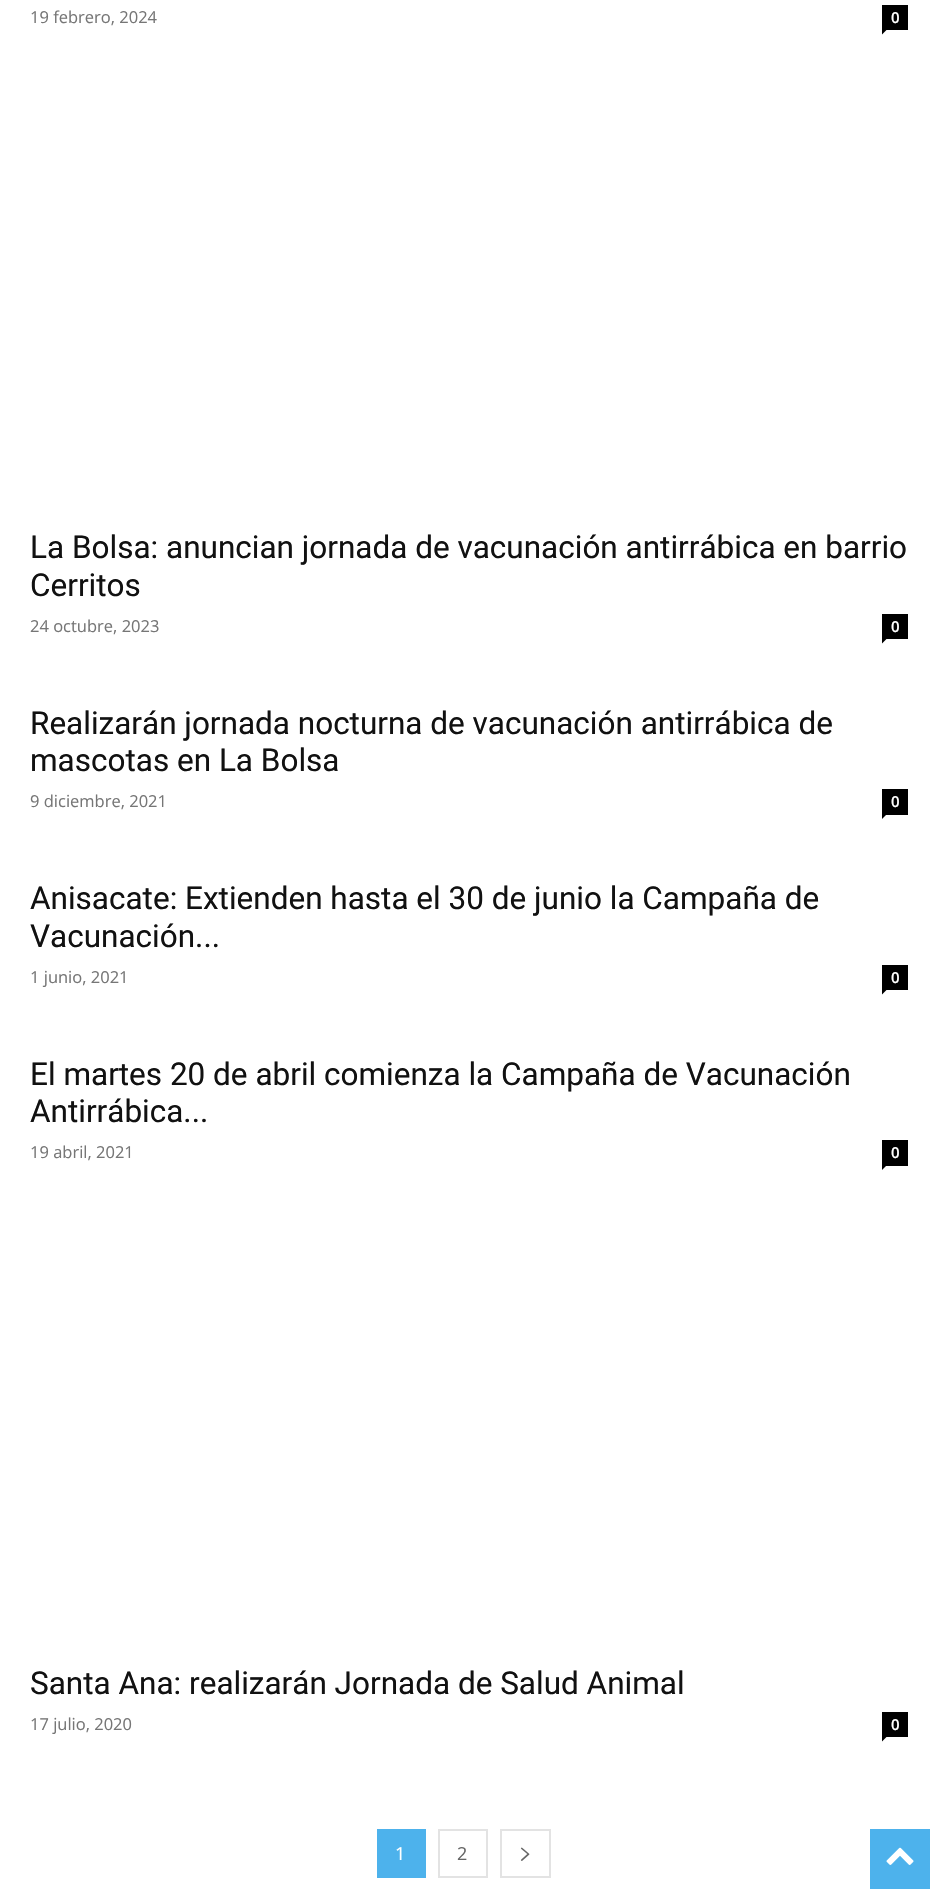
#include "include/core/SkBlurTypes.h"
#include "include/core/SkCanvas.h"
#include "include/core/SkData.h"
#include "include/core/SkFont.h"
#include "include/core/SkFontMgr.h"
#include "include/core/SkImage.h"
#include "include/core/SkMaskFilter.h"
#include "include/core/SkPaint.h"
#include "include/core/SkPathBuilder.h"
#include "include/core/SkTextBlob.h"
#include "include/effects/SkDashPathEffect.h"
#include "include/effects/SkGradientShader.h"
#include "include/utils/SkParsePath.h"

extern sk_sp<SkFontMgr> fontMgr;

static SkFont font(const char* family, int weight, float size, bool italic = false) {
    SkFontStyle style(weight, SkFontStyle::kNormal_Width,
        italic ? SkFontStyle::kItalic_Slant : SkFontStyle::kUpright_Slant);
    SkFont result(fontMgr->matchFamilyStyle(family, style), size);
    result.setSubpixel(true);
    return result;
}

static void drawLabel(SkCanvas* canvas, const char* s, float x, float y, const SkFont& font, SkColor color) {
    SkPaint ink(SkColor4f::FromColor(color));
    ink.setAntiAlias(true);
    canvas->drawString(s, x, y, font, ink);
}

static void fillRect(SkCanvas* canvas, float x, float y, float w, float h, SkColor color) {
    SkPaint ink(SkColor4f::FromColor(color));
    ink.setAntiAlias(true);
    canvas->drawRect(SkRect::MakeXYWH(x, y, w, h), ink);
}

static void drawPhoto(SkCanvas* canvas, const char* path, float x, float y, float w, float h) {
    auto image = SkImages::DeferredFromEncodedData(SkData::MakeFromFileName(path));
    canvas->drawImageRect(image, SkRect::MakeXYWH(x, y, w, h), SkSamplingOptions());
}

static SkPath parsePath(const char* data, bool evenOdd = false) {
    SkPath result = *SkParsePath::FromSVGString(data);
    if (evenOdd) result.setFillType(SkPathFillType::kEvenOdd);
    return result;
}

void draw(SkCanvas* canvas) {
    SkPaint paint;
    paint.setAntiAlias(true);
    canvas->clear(0xFFFFFFFF);
    SkFont font1 = font("Open Sans", 400, 16.5f);
    drawLabel(canvas, "19 febrero, 2024", 30, 23, font1, 0xFF767676);
    fillRect(canvas, 882, 5, 26, 25, 0xFF000000);
    SkFont font2 = font("Open Sans", 600, 15);
    drawLabel(canvas, "0", 891, 23, font2, 0xFFFFFFFF);
    paint.setColor(0xFF000000);
    canvas->drawPath(parsePath("M882 30H886.5L882 34.5Z"), paint);
    SkFont font3 = font("Roboto", 400, 31.5f);
    drawLabel(canvas, "La Bolsa: anuncian jornada de vacunación antirrábica en barrio", 30, 558, font3, 0xFF111111);
    drawLabel(canvas, "Cerritos", 30, 596, font3, 0xFF111111);
    drawLabel(canvas, "24 octubre, 2023", 30, 632, font1, 0xFF767676);
    fillRect(canvas, 882, 614, 26, 25, 0xFF000000);
    drawLabel(canvas, "0", 891, 632, font2, 0xFFFFFFFF);
    canvas->drawPath(parsePath("M882 639H886.5L882 643.5Z"), paint);
    drawLabel(canvas, "Realizarán jornada nocturna de vacunación antirrábica de", 30, 734, font3, 0xFF111111);
    drawLabel(canvas, "mascotas en La Bolsa", 30, 771, font3, 0xFF111111);
    drawLabel(canvas, "9 diciembre, 2021", 30, 807, font1, 0xFF767676);
    fillRect(canvas, 882, 789, 26, 26, 0xFF000000);
    drawLabel(canvas, "0", 891, 807, font2, 0xFFFFFFFF);
    canvas->drawPath(parsePath("M882 814.5H886.5L882 819Z"), paint);
    drawLabel(canvas, "Anisacate: Extienden hasta el 30 de junio la Campaña de", 30, 909, font3, 0xFF111111);
    drawLabel(canvas, "Vacunación...", 30, 947, font3, 0xFF111111);
    drawLabel(canvas, "1 junio, 2021", 30, 983, font1, 0xFF767676);
    fillRect(canvas, 882, 965, 26, 25, 0xFF000000);
    drawLabel(canvas, "0", 891, 983, font2, 0xFFFFFFFF);
    canvas->drawPath(parsePath("M882 990H886.5L882 994.5Z"), paint);
    drawLabel(canvas, "El martes 20 de abril comienza la Campaña de Vacunación", 30, 1085, font3, 0xFF111111);
    drawLabel(canvas, "Antirrábica...", 30, 1122, font3, 0xFF111111);
    drawLabel(canvas, "19 abril, 2021", 30, 1158, font1, 0xFF767676);
    fillRect(canvas, 882, 1140, 26, 26, 0xFF000000);
    drawLabel(canvas, "0", 891, 1158, font2, 0xFFFFFFFF);
    canvas->drawPath(parsePath("M882 1165.5H886.5L882 1170Z"), paint);
    drawLabel(canvas, "Santa Ana: realizarán Jornada de Salud Animal", 30, 1694, font3, 0xFF111111);
    drawLabel(canvas, "17 julio, 2020", 30, 1730, font1, 0xFF767676);
    fillRect(canvas, 882, 1712, 26, 25, 0xFF000000);
    drawLabel(canvas, "0", 891, 1730, font2, 0xFFFFFFFF);
    canvas->drawPath(parsePath("M882 1737H886.5L882 1741.5Z"), paint);
    fillRect(canvas, 377, 1829, 49, 49, 0xFF4DB2EC);
    SkFont font4 = font("Open Sans", 400, 18);
    drawLabel(canvas, "1", 395, 1860, font4, 0xFFFFFFFF);
    paint.setStroke(true);
    paint.setStrokeWidth(2);
    paint.setColor(0xFFE3E3E3);
    canvas->drawRect(SkRect::MakeXYWH(439, 1830, 48, 47), paint);
    drawLabel(canvas, "2", 457, 1860, font4, 0xFF666666);
    canvas->drawRect(SkRect::MakeXYWH(501, 1830, 49, 47), paint);
    drawPhoto(canvas, "assets/img1.png", 520, 1847, 10, 14);
    fillRect(canvas, 870, 1829, 60, 60, 0xFF4DB2EC);
    drawPhoto(canvas, "assets/img2.png", 886, 1847, 28, 18);
}
